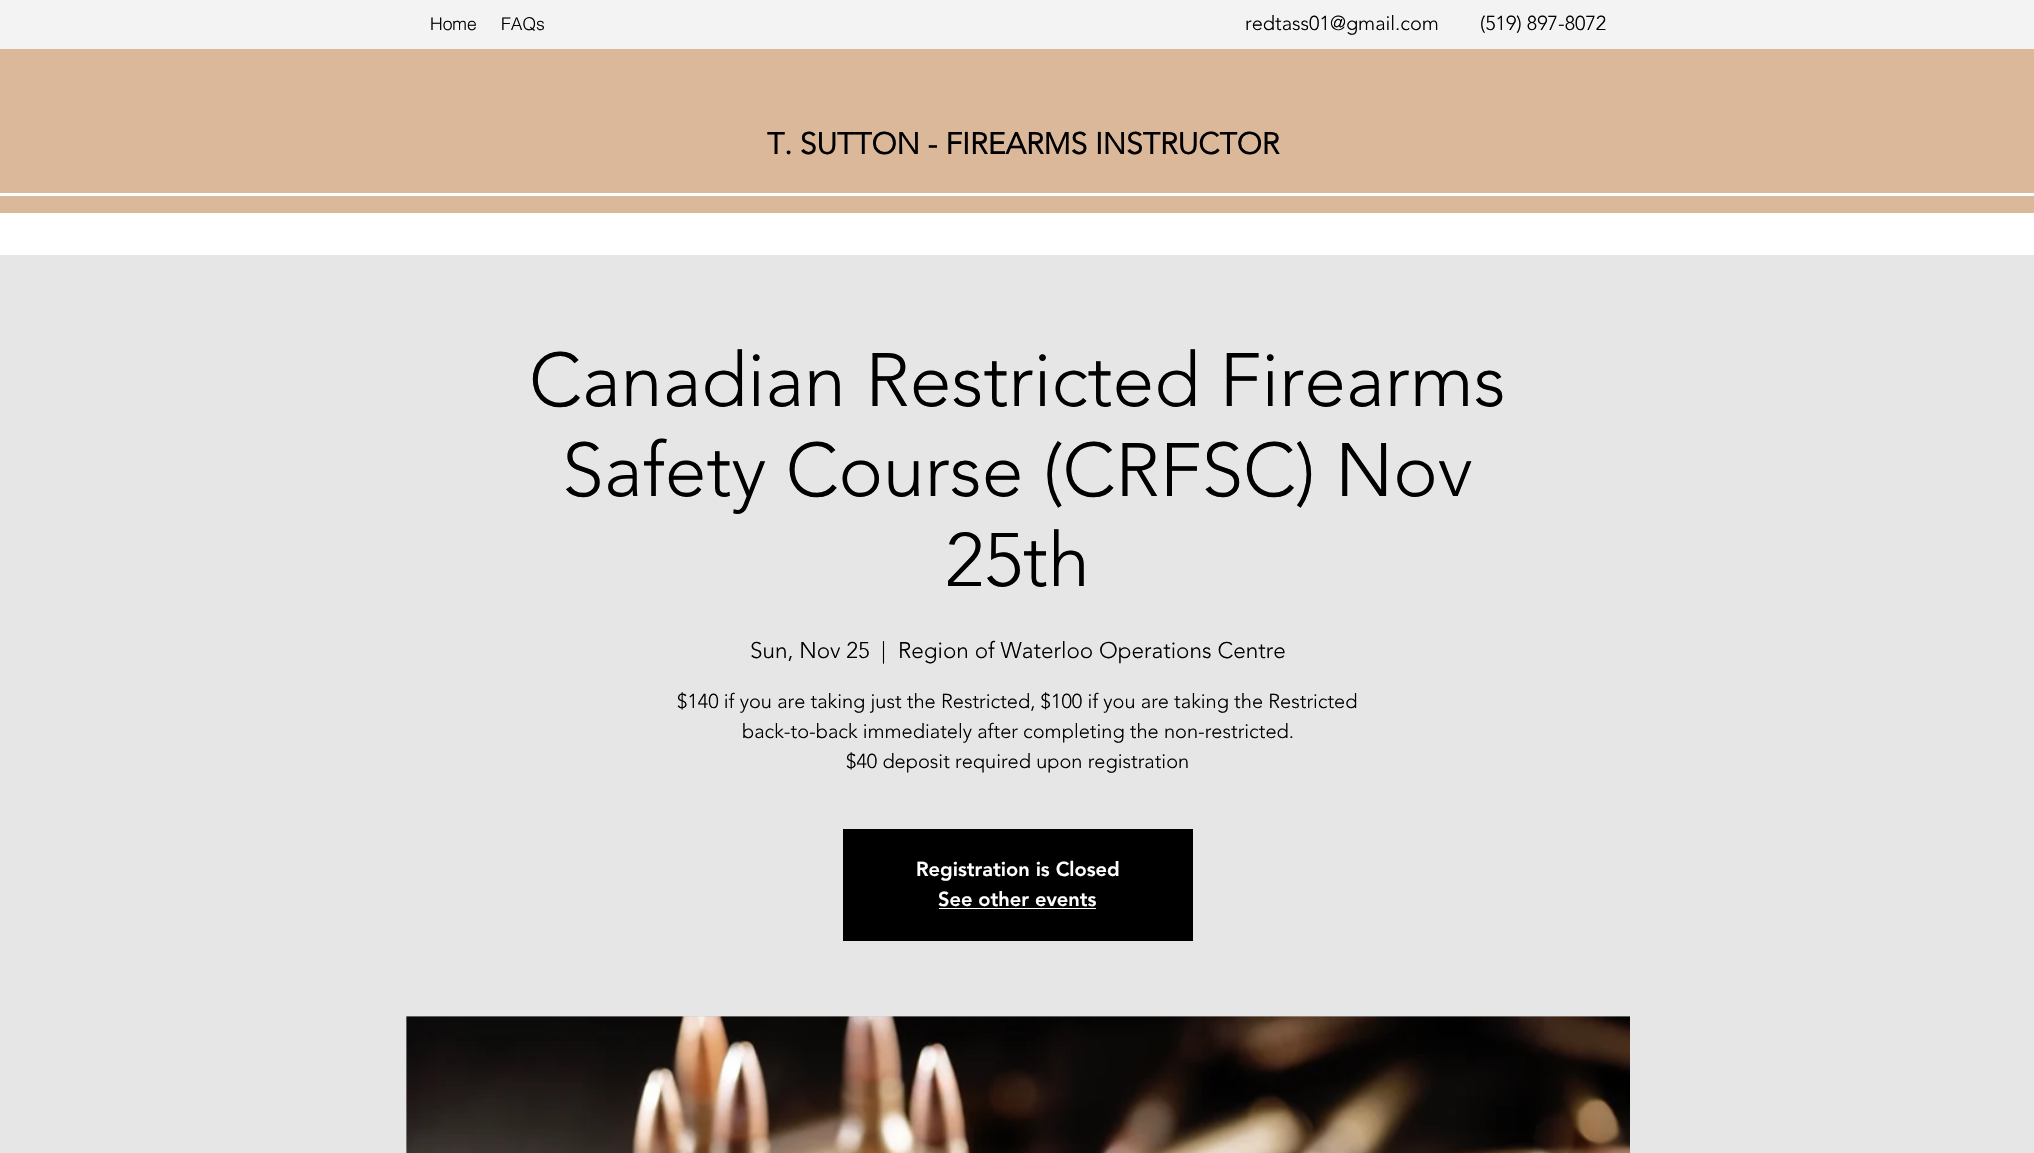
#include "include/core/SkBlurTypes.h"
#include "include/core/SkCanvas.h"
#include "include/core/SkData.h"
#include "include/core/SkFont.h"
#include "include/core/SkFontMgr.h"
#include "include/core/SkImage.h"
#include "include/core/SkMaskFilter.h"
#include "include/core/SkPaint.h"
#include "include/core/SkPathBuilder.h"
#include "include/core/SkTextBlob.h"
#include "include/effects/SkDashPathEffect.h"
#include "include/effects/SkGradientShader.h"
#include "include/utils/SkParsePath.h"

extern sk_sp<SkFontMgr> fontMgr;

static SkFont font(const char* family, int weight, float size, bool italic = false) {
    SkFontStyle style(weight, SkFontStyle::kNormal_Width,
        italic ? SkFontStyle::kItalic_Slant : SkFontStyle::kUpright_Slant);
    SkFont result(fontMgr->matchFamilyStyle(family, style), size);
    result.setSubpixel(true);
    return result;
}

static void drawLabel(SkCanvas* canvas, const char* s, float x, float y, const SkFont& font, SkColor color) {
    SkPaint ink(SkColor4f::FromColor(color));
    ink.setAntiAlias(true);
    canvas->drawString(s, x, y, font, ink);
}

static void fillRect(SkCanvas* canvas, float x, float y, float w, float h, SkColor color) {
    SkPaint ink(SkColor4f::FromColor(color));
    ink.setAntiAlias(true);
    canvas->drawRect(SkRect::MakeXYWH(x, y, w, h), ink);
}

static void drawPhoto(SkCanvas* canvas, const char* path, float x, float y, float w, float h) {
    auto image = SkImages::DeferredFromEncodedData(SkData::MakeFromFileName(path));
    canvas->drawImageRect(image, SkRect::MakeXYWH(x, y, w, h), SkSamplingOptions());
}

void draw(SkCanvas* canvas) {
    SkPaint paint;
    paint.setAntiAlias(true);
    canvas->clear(0xFFFFFFFF);
    fillRect(canvas, 0, 0, 2034, 49, 0xFFF3F3F3);
    SkFont font1 = font("helvetica", 300, 17.5f);
    drawLabel(canvas, "Home", 430, 30, font1, 0xFF000000);
    drawLabel(canvas, "FAQs", 501, 30, font1, 0xFF000000);
    SkFont font2 = font("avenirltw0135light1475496", 300, 20);
    drawLabel(canvas, "redtass01@gmail.com", 1245, 30, font2, 0xFF000000);
    drawLabel(canvas, "(519) 897-8072", 1480, 30, font2, 0xFF000000);
    fillRect(canvas, 0, 49, 2034, 164, 0xFFDBB89A);
    SkFont font3 = font("avenirltw0135light1475496", 700, 30);
    drawLabel(canvas, "T. SUTTON - FIREARMS INSTRUCTOR", 767, 154, font3, 0xFF000000);
    fillRect(canvas, 0, 193, 2034, 3, 0xFFFFFFFF);
    fillRect(canvas, 0, 255, 2034, 898, 0xFFE6E6E6);
    SkFont font4 = font("avenirltw0135light1475496", 300, 75);
    drawLabel(canvas, "Canadian Restricted Firearms", 529, 406, font4, 0xFF000000);
    drawLabel(canvas, "Safety Course (CRFSC) Nov", 562, 496, font4, 0xFF000000);
    drawLabel(canvas, "25th", 945, 586, font4, 0xFF000000);
    SkFont font5 = font("avenirltw0135light1475496", 300, 22.5f);
    drawLabel(canvas, "Sun, Nov 25", 750, 658, font5, 0xFF000000);
    drawLabel(canvas, "|", 881, 658, font5, 0xFF000000);
    drawLabel(canvas, "Region of Waterloo Operations Centre", 898, 658, font5, 0xFF000000);
    drawLabel(canvas, "$140 if you are taking just the Restricted, $100 if you are taking the Restricted", 677, 708, font2, 0xFF000000);
    drawLabel(canvas, "back-to-back immediately after completing the non-restricted.", 742, 738, font2, 0xFF000000);
    drawLabel(canvas, "$40 deposit required upon registration", 846, 768, font2, 0xFF000000);
    fillRect(canvas, 843, 829, 350, 112, 0xFF000000);
    SkFont font6 = font("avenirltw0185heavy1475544", 900, 20);
    drawLabel(canvas, "Registration is Closed", 916, 876, font6, 0xFFFFFFFF);
    drawLabel(canvas, "See other events", 938, 906, font6, 0xFFFFFFFF);
    fillRect(canvas, 939, 908, 157, 1, 0xFFFFFFFF);
    fillRect(canvas, 406, 1016, 1224, 137, 0xFFCFCFCF);
    drawPhoto(canvas, "assets/img1.png", 406, 1016, 1224, 137);
}
